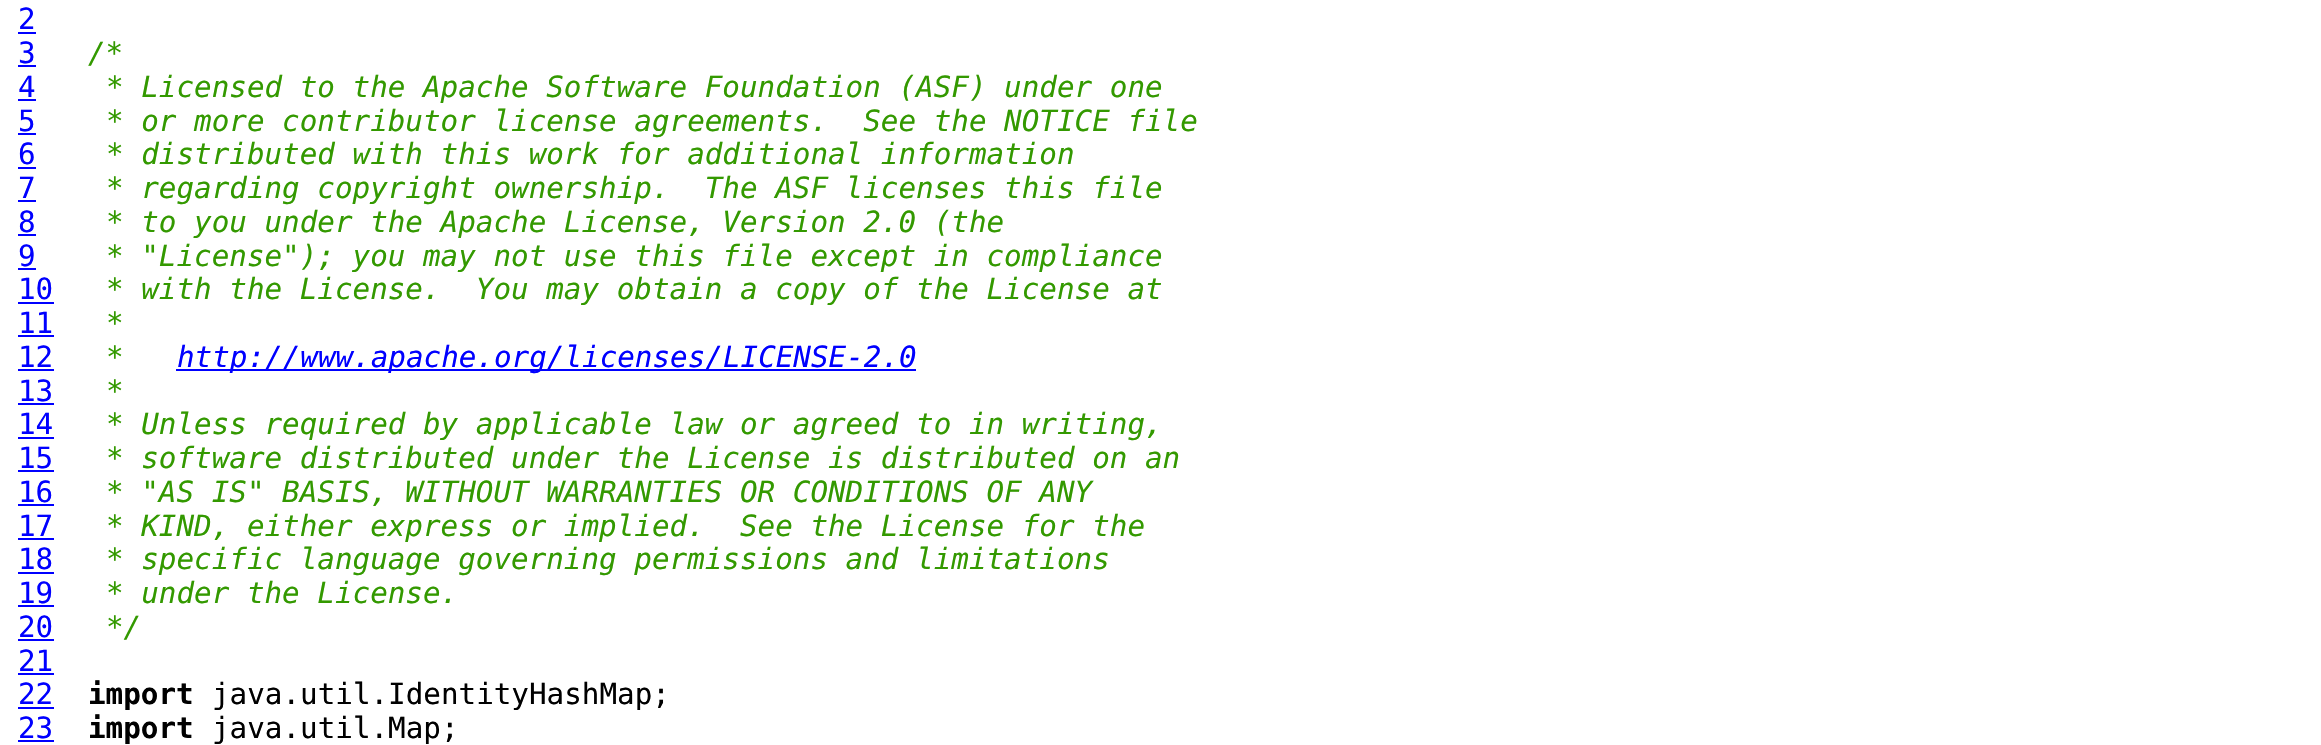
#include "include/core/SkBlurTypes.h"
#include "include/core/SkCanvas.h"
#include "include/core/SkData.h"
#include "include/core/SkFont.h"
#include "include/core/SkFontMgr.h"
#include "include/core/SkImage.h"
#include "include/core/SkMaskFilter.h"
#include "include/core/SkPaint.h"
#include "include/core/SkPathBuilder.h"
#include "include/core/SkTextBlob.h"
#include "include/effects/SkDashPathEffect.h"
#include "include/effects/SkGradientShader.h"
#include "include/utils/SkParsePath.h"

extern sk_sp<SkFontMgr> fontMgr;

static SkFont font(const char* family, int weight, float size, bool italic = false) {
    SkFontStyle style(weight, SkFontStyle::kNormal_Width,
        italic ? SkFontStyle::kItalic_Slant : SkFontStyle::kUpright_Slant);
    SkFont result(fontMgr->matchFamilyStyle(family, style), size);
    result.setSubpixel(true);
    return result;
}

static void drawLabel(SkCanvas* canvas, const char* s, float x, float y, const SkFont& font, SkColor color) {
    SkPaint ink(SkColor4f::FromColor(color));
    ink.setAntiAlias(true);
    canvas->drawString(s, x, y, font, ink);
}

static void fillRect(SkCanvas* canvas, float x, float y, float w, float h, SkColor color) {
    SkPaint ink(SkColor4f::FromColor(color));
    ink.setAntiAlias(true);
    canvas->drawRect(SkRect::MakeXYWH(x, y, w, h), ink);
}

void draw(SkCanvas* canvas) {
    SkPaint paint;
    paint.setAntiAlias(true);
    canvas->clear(0xFFFFFFFF);
    SkFont font1 = font("DejaVu Sans Mono", 400, 29.25f);
    drawLabel(canvas, "2", 18, 29, font1, 0xFF0000FF);
    fillRect(canvas, 18, 32, 18, 2, 0xFF0000FF);
    drawLabel(canvas, "3", 18, 63, font1, 0xFF0000FF);
    fillRect(canvas, 18, 65, 18, 2, 0xFF0000FF);
    SkFont font2 = font("DejaVu Sans Mono", 400, 29.25f, true);
    drawLabel(canvas, "/*", 88, 63, font2, 0xFF339900);
    drawLabel(canvas, "4", 18, 97, font1, 0xFF0000FF);
    fillRect(canvas, 18, 99, 18, 2, 0xFF0000FF);
    drawLabel(canvas, "* Licensed to the Apache Software Foundation (ASF) under one", 106, 97, font2, 0xFF339900);
    drawLabel(canvas, "5", 18, 131, font1, 0xFF0000FF);
    fillRect(canvas, 18, 133, 18, 2, 0xFF0000FF);
    drawLabel(canvas, "* or more contributor license agreements.  See the NOTICE file", 106, 131, font2, 0xFF339900);
    drawLabel(canvas, "6", 18, 164, font1, 0xFF0000FF);
    fillRect(canvas, 18, 167, 18, 2, 0xFF0000FF);
    drawLabel(canvas, "* distributed with this work for additional information", 106, 164, font2, 0xFF339900);
    drawLabel(canvas, "7", 18, 198, font1, 0xFF0000FF);
    fillRect(canvas, 18, 200, 18, 2, 0xFF0000FF);
    drawLabel(canvas, "* regarding copyright ownership.  The ASF licenses this file", 106, 198, font2, 0xFF339900);
    drawLabel(canvas, "8", 18, 232, font1, 0xFF0000FF);
    fillRect(canvas, 18, 234, 18, 2, 0xFF0000FF);
    drawLabel(canvas, "* to you under the Apache License, Version 2.0 (the", 106, 232, font2, 0xFF339900);
    drawLabel(canvas, "9", 18, 266, font1, 0xFF0000FF);
    fillRect(canvas, 18, 268, 18, 2, 0xFF0000FF);
    drawLabel(canvas, "* \"License\"); you may not use this file except in compliance", 106, 266, font2, 0xFF339900);
    drawLabel(canvas, "10", 18, 299, font1, 0xFF0000FF);
    fillRect(canvas, 18, 302, 36, 2, 0xFF0000FF);
    drawLabel(canvas, "* with the License.  You may obtain a copy of the License at", 106, 299, font2, 0xFF339900);
    drawLabel(canvas, "11", 18, 333, font1, 0xFF0000FF);
    fillRect(canvas, 18, 335, 36, 2, 0xFF0000FF);
    drawLabel(canvas, "*", 106, 333, font2, 0xFF339900);
    drawLabel(canvas, "12", 18, 367, font1, 0xFF0000FF);
    fillRect(canvas, 18, 369, 36, 2, 0xFF0000FF);
    drawLabel(canvas, "*", 106, 367, font2, 0xFF339900);
    fillRect(canvas, 176, 369, 740, 2, 0xFF0000FF);
    drawLabel(canvas, "http://www.apache.org/licenses/LICENSE-2.0", 177, 367, font2, 0xFF0000FF);
    drawLabel(canvas, "13", 18, 401, font1, 0xFF0000FF);
    fillRect(canvas, 18, 403, 36, 2, 0xFF0000FF);
    drawLabel(canvas, "*", 106, 401, font2, 0xFF339900);
    drawLabel(canvas, "14", 18, 434, font1, 0xFF0000FF);
    fillRect(canvas, 18, 437, 36, 2, 0xFF0000FF);
    drawLabel(canvas, "* Unless required by applicable law or agreed to in writing,", 106, 434, font2, 0xFF339900);
    drawLabel(canvas, "15", 18, 468, font1, 0xFF0000FF);
    fillRect(canvas, 18, 470, 36, 2, 0xFF0000FF);
    drawLabel(canvas, "* software distributed under the License is distributed on an", 106, 468, font2, 0xFF339900);
    drawLabel(canvas, "16", 18, 502, font1, 0xFF0000FF);
    fillRect(canvas, 18, 504, 36, 2, 0xFF0000FF);
    drawLabel(canvas, "* \"AS IS\" BASIS, WITHOUT WARRANTIES OR CONDITIONS OF ANY", 106, 502, font2, 0xFF339900);
    drawLabel(canvas, "17", 18, 536, font1, 0xFF0000FF);
    fillRect(canvas, 18, 538, 36, 2, 0xFF0000FF);
    drawLabel(canvas, "* KIND, either express or implied.  See the License for the", 106, 536, font2, 0xFF339900);
    drawLabel(canvas, "18", 18, 569, font1, 0xFF0000FF);
    fillRect(canvas, 18, 572, 36, 2, 0xFF0000FF);
    drawLabel(canvas, "* specific language governing permissions and limitations", 106, 569, font2, 0xFF339900);
    drawLabel(canvas, "19", 18, 603, font1, 0xFF0000FF);
    fillRect(canvas, 18, 605, 36, 2, 0xFF0000FF);
    drawLabel(canvas, "* under the License.", 106, 603, font2, 0xFF339900);
    drawLabel(canvas, "20", 18, 637, font1, 0xFF0000FF);
    fillRect(canvas, 18, 639, 36, 2, 0xFF0000FF);
    drawLabel(canvas, "*/", 106, 637, font2, 0xFF339900);
    drawLabel(canvas, "21", 18, 671, font1, 0xFF0000FF);
    fillRect(canvas, 18, 673, 36, 2, 0xFF0000FF);
    drawLabel(canvas, "22", 18, 704, font1, 0xFF0000FF);
    fillRect(canvas, 18, 707, 36, 2, 0xFF0000FF);
    SkFont font3 = font("DejaVu Sans Mono", 700, 29.25f);
    drawLabel(canvas, "import", 88, 704, font3, 0xFF000000);
    drawLabel(canvas, "java.util.IdentityHashMap;", 212, 704, font1, 0xFF000000);
    drawLabel(canvas, "23", 18, 738, font1, 0xFF0000FF);
    fillRect(canvas, 18, 740, 36, 2, 0xFF0000FF);
    drawLabel(canvas, "import", 88, 738, font3, 0xFF000000);
    drawLabel(canvas, "java.util.Map;", 212, 738, font1, 0xFF000000);
}
